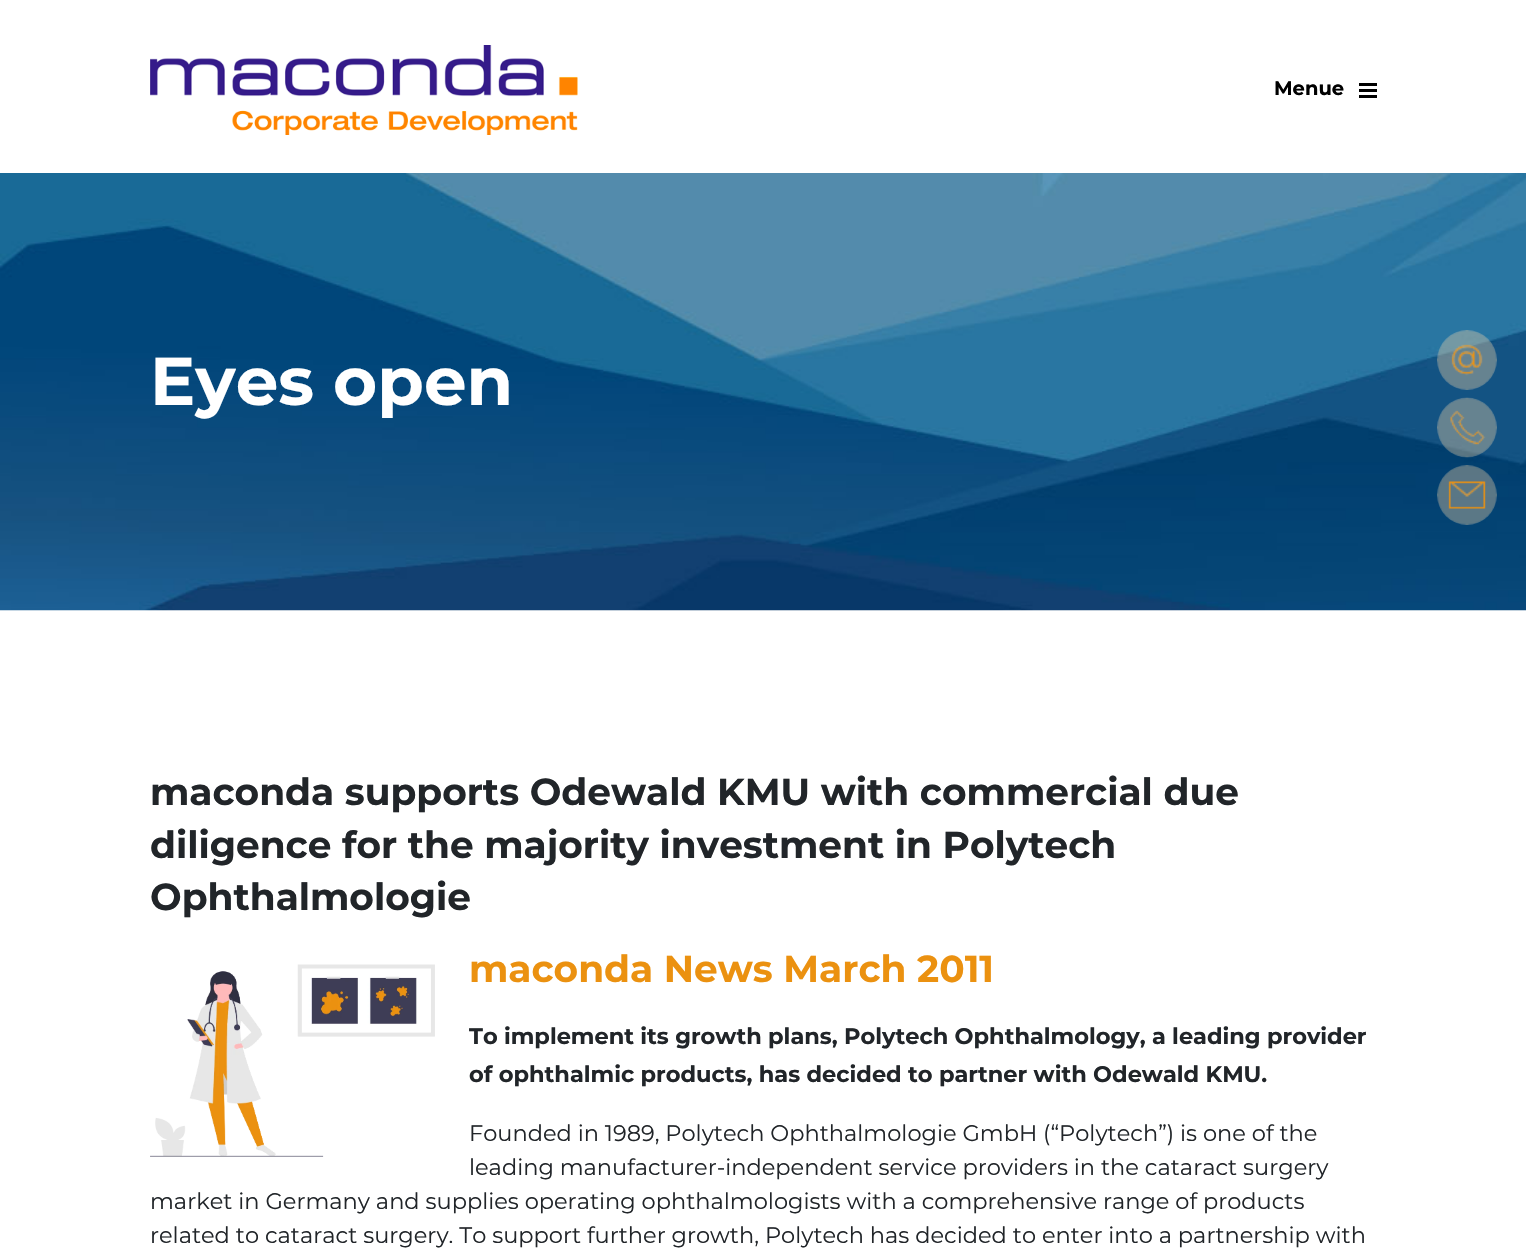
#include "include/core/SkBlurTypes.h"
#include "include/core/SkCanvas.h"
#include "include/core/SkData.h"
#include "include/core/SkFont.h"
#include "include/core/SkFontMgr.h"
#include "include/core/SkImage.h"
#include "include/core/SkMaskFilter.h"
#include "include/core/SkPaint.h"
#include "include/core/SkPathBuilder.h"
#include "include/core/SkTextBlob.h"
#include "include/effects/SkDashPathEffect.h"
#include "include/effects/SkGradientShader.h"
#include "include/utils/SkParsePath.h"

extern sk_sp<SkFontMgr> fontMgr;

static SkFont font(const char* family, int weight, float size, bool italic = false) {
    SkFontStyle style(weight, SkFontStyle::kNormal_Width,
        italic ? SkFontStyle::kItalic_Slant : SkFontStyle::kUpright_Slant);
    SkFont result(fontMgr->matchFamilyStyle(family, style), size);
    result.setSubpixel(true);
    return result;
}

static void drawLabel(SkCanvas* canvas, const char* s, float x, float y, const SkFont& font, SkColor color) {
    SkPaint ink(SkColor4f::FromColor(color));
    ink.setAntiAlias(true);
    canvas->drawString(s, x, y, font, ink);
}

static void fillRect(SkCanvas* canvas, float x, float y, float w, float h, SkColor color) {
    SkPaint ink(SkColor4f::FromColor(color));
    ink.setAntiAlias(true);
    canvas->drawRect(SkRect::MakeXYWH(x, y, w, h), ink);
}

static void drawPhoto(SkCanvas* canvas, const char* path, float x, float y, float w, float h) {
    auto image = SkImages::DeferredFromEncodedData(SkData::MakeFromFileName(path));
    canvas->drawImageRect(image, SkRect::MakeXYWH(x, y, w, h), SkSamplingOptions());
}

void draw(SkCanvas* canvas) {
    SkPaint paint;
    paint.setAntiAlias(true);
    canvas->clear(0xFFFFFFFF);
    drawPhoto(canvas, "assets/img1.png", 150, 45, 428, 90);
    SkFont font1 = font("Montserrat", 700, 19.5f);
    drawLabel(canvas, "Menue", 1274, 95, font1, 0xFF000000);
    fillRect(canvas, 1359, 83, 18, 3, 0xFF000000);
    fillRect(canvas, 1359, 89, 18, 3, 0xFF000000);
    fillRect(canvas, 1359, 95, 18, 3, 0xFF000000);
    drawPhoto(canvas, "assets/img2.png", 0, 173, 1526, 438);
    SkFont font2 = font("Montserrat", 700, 67.5f);
    drawLabel(canvas, "Eyes open", 150, 405, font2, 0xFFFFFFFF);
    drawPhoto(canvas, "assets/img3.png", 1437, 330, 60, 60);
    drawPhoto(canvas, "assets/img4.png", 1437, 397, 60, 61);
    drawPhoto(canvas, "assets/img5.png", 1437, 465, 60, 60);
    SkFont font3 = font("Montserrat", 700, 37.5f);
    drawLabel(canvas, "maconda supports Odewald KMU with commercial due", 150, 805, font3, 0xFF212529);
    drawLabel(canvas, "diligence for the majority investment in Polytech", 150, 858, font3, 0xFF212529);
    drawLabel(canvas, "Ophthalmologie", 150, 910, font3, 0xFF212529);
    drawLabel(canvas, "maconda News March 2011", 469, 982, font3, 0xFFEB9110);
    SkFont font4 = font("Montserrat", 700, 22.5f);
    drawLabel(canvas, "To implement its growth plans, Polytech Ophthalmology, a leading provider", 469, 1044, font4, 0xFF212529);
    drawLabel(canvas, "of ophthalmic products, has decided to partner with Odewald KMU.", 469, 1082, font4, 0xFF212529);
    SkFont font5 = font("Montserrat", 400, 22.5f);
    drawLabel(canvas, "Founded in 1989, Polytech Ophthalmologie GmbH (“Polytech”) is one of the", 469, 1141, font5, 0xFF212529);
    drawLabel(canvas, "leading manufacturer-independent service providers in the cataract surgery", 469, 1175, font5, 0xFF212529);
    drawLabel(canvas, "market in Germany and supplies operating ophthalmologists with a comprehensive range of products", 150, 1209, font5, 0xFF212529);
    drawLabel(canvas, "related to cataract surgery. To support further growth, Polytech has decided to enter into a partnership with", 150, 1243, font5, 0xFF212529);
    drawPhoto(canvas, "assets/img6.png", 150, 964, 285, 193);
}
